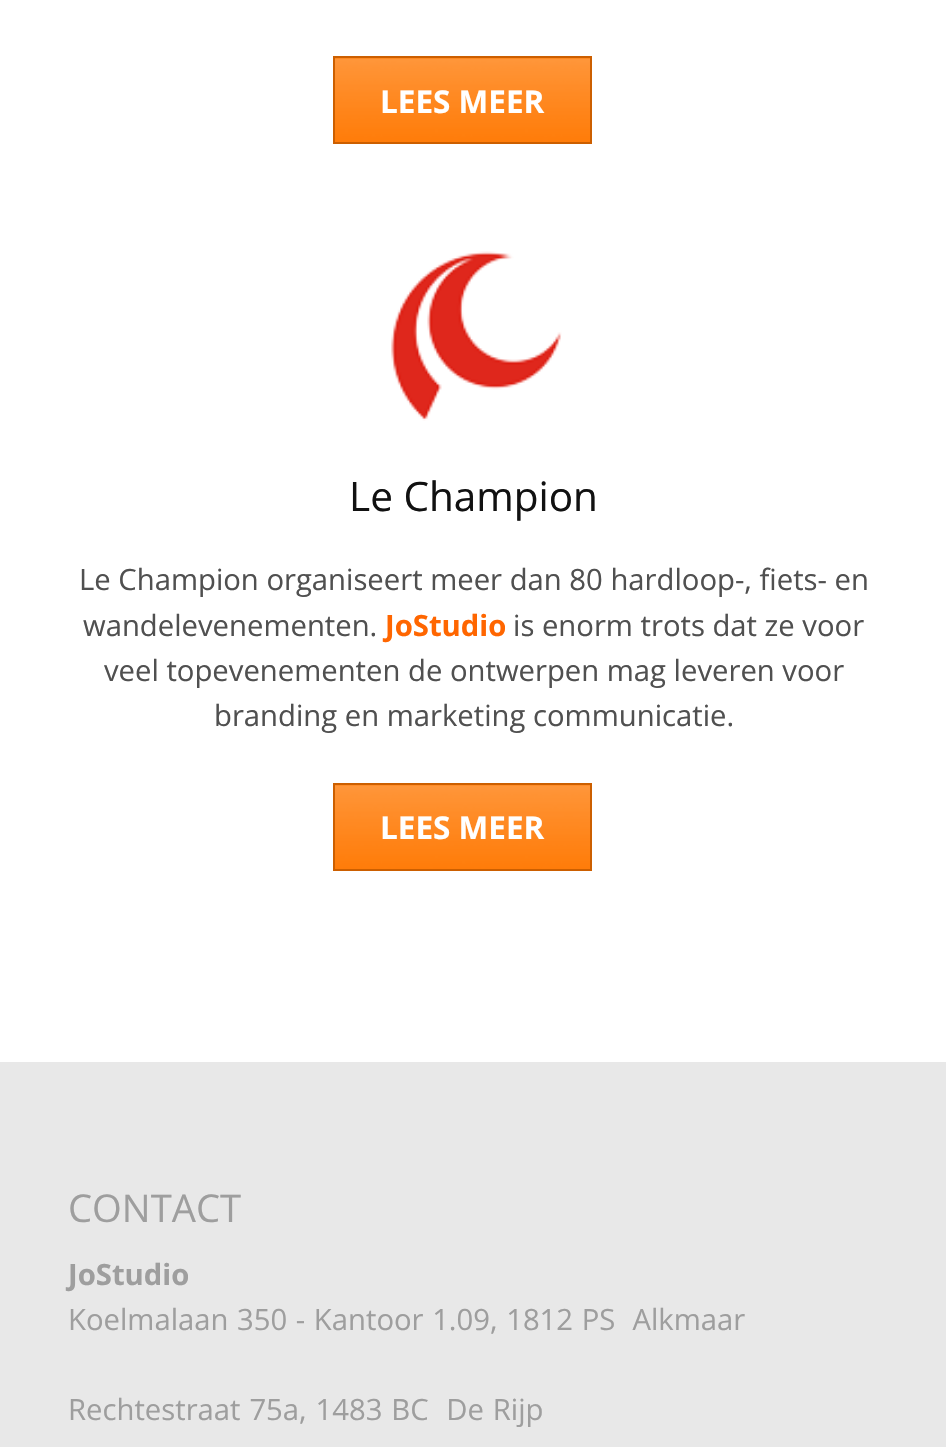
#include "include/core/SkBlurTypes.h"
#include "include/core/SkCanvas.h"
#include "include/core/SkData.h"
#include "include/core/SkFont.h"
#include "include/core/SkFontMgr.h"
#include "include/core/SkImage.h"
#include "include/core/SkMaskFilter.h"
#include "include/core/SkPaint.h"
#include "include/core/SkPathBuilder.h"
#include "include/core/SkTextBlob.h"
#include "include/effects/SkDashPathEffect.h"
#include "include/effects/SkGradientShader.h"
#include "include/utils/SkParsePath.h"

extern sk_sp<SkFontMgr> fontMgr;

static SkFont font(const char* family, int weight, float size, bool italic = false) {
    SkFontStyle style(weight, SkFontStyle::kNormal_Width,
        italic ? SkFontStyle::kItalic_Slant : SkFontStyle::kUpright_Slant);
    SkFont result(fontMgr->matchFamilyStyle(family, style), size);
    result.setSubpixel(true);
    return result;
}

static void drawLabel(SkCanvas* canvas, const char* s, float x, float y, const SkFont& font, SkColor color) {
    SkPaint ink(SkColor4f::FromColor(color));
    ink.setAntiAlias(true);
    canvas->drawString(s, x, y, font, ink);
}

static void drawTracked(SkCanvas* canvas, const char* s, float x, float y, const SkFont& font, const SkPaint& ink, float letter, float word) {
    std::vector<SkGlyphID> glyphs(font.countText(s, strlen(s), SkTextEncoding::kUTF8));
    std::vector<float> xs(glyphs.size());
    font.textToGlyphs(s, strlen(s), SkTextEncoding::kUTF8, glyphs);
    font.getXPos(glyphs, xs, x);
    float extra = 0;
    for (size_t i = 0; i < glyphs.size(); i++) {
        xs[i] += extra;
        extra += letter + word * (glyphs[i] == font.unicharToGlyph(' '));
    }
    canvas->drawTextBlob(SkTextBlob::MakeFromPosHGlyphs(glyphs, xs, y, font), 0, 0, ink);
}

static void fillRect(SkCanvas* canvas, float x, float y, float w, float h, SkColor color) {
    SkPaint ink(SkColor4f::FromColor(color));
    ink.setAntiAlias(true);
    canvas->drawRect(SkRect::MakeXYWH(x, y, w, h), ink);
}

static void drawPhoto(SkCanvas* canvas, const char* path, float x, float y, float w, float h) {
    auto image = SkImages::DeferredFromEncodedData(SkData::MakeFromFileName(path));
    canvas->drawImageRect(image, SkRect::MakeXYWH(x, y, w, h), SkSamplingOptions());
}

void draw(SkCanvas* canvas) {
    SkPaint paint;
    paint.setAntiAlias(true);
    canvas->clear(0xFFFFFFFF);
    fillRect(canvas, 335, 58, 255, 84, 0xFFFF7700);
    drawPhoto(canvas, "assets/img1.png", 335, 58, 255, 84);
    paint.setStroke(true);
    paint.setStrokeWidth(2);
    paint.setColor(0xFFCC5F00);
    canvas->drawRect(SkRect::MakeXYWH(334, 57, 257, 86), paint);
    SkFont font1 = font("Open Sans", 700, 31.5f);
    drawLabel(canvas, "LEES MEER", 380, 113, font1, 0xFFFFFFFF);
    drawPhoto(canvas, "assets/img2.png", 391, 251, 171, 170);
    SkFont font2 = font("Open Sans", 400, 40.5f);
    drawLabel(canvas, "Le Champion", 349, 511, font2, 0xFF111111);
    SkFont font3 = font("Open Sans", 400, 29.25f);
    drawLabel(canvas, "Le Champion organiseert meer dan 80 hardloop-, fiets- en", 79, 590, font3, 0xFF505050);
    drawLabel(canvas, "wandelevenementen.", 83, 636, font3, 0xFF505050);
    SkFont font4 = font("Open Sans", 700, 29.25f);
    drawLabel(canvas, "JoStudio", 385, 636, font4, 0xFFFF6600);
    drawLabel(canvas, "is enorm trots dat ze voor", 513, 636, font3, 0xFF505050);
    drawLabel(canvas, "veel topevenementen de ontwerpen mag leveren voor", 104, 681, font3, 0xFF505050);
    drawLabel(canvas, "branding en marketing communicatie.", 214, 726, font3, 0xFF505050);
    fillRect(canvas, 335, 785, 255, 84, 0xFFFF7700);
    drawPhoto(canvas, "assets/img3.png", 335, 785, 255, 84);
    canvas->drawRect(SkRect::MakeXYWH(334, 784, 257, 86), paint);
    drawLabel(canvas, "LEES MEER", 380, 839, font1, 0xFFFFFFFF);
    fillRect(canvas, 0, 1062, 946, 385, 0xFFE8E8E8);
    SkFont font5 = font("Open Sans", 400, 38.25f);
    drawLabel(canvas, "CONTACT", 68, 1222, font5, 0xFF9E9E9E);
    drawLabel(canvas, "JoStudio", 68, 1285, font4, 0xFF9E9E9E);
    paint.setStroke(false);
    paint.setColor(0xFF9E9E9E);
    drawTracked(canvas, "Koelmalaan 350 - Kantoor 1.09, 1812 PS  Alkmaar", 68, 1330, font3, paint, 0, 1);
    drawTracked(canvas, "Rechtestraat 75a, 1483 BC  De Rijp", 68, 1420, font3, paint, 0, 1.25f);
}
